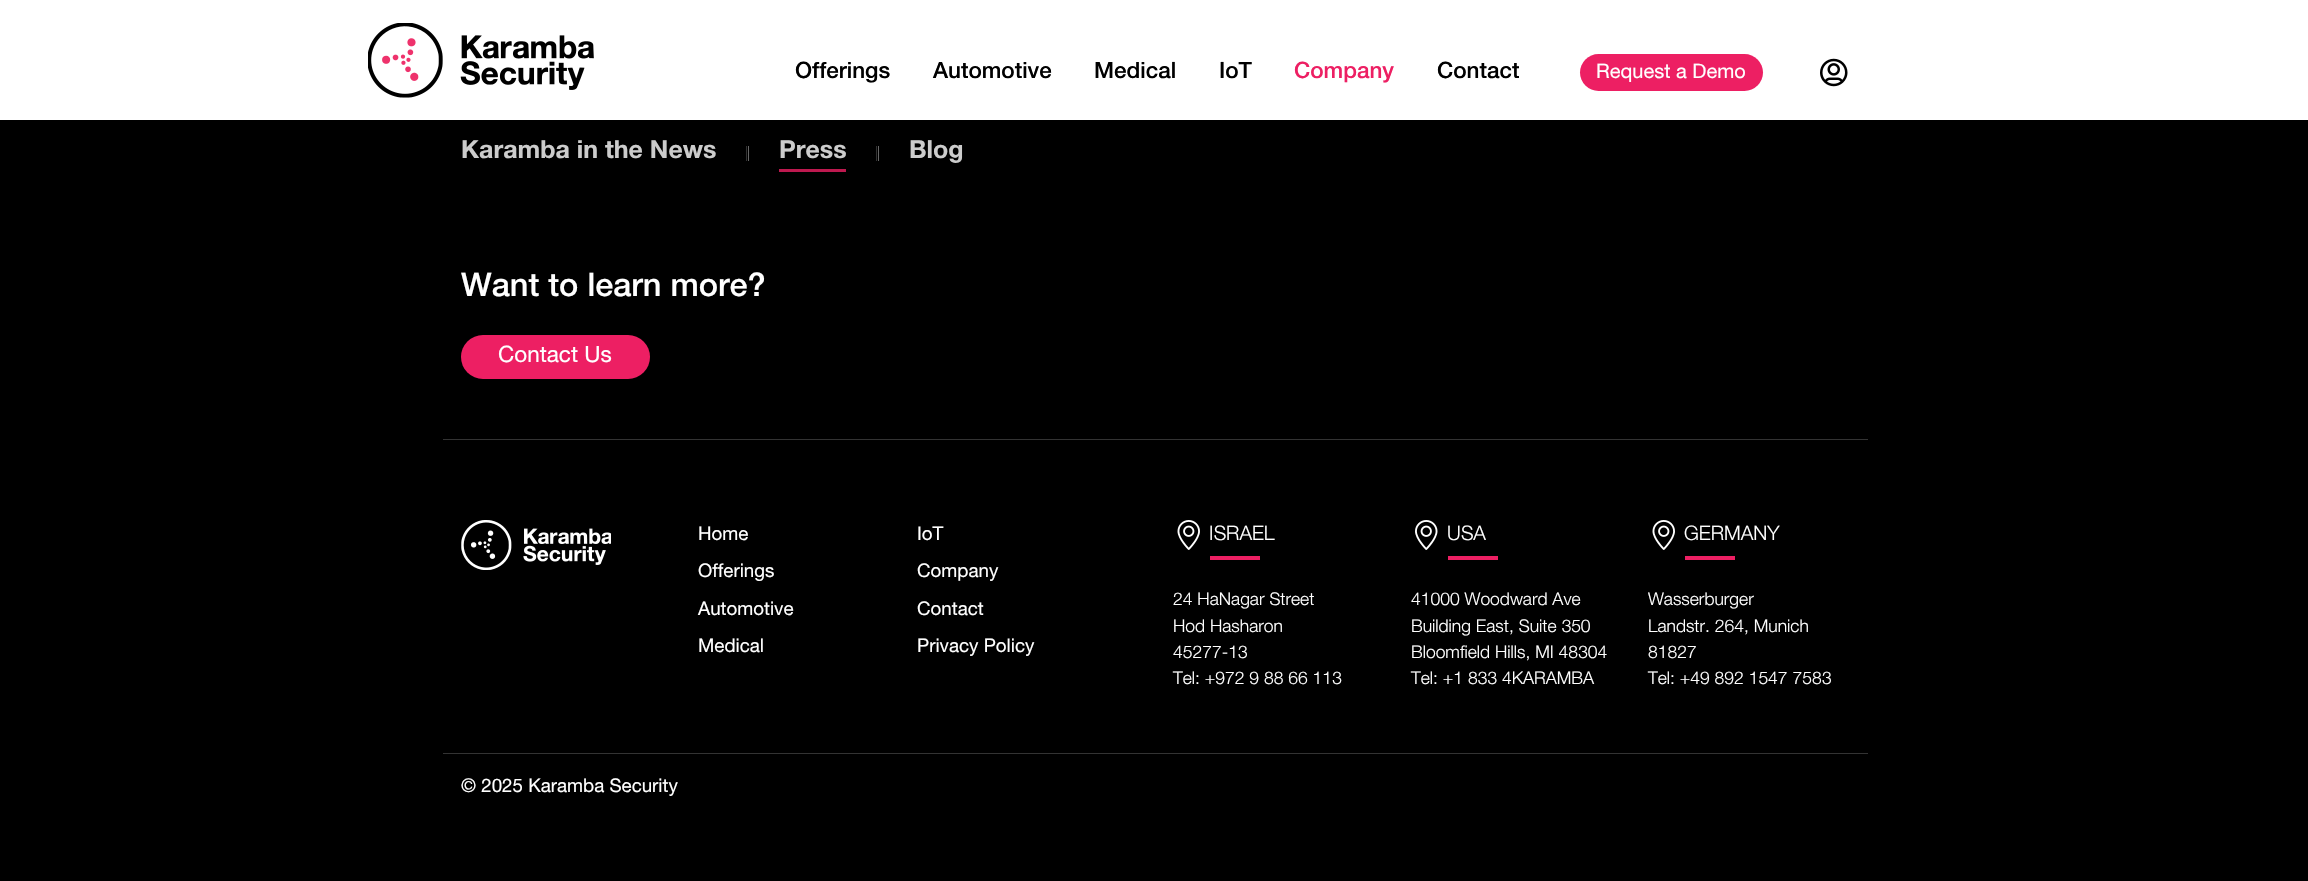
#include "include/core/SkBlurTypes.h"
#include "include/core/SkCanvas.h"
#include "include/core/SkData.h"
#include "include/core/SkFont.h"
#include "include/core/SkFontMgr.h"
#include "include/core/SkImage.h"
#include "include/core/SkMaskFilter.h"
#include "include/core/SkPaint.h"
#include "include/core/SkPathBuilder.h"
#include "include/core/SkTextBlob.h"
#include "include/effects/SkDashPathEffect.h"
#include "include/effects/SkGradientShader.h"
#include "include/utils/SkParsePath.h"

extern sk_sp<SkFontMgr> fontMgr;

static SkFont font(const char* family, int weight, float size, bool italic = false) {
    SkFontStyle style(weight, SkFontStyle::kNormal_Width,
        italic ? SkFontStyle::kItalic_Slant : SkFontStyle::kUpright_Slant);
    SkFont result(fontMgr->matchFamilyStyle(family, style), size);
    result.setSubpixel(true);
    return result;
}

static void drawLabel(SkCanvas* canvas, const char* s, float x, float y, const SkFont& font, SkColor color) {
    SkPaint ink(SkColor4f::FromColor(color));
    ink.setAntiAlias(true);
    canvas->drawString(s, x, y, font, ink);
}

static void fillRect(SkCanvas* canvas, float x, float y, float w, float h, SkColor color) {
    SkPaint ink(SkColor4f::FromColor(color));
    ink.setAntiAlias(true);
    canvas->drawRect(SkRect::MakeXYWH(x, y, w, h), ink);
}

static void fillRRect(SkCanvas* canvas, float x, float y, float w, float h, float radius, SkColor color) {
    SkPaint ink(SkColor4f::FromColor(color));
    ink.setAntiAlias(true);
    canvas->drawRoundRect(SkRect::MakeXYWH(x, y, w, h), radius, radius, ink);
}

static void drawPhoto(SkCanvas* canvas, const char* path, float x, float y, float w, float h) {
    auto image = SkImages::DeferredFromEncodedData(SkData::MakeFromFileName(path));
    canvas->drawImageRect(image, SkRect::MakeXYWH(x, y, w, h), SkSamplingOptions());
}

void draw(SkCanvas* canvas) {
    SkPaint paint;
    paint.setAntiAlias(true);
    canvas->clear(0xFF000000);
    fillRect(canvas, 0, 0, 2308, 120, 0xFFFFFFFF);
    drawPhoto(canvas, "assets/img1.png", 368, 23, 226, 75);
    SkFont font1 = font("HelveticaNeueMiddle", 400, 22.5f);
    drawLabel(canvas, "Offerings", 795, 78, font1, 0xFF000000);
    drawLabel(canvas, "Automotive", 933, 78, font1, 0xFF000000);
    drawLabel(canvas, "Medical", 1094, 78, font1, 0xFF000000);
    drawLabel(canvas, "IoT", 1219, 78, font1, 0xFF000000);
    drawLabel(canvas, "Company", 1294, 78, font1, 0xFFED1F63);
    drawLabel(canvas, "Contact", 1437, 78, font1, 0xFF000000);
    fillRRect(canvas, 1580, 54, 183, 37, 18.5f, 0xFFED1F63);
    SkFont font2 = font("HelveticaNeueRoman", 400, 20);
    drawLabel(canvas, "Request a Demo", 1596, 78, font2, 0xFFFFFFFF);
    drawPhoto(canvas, "assets/img2.png", 1820, 58, 28, 29);
    SkFont font3 = font("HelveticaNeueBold", 400, 25);
    drawLabel(canvas, "Karamba in the News", 461, 158, font3, 0xFFCCCCCC);
    fillRect(canvas, 748, 146, 1, 15, 0xFF666666);
    fillRect(canvas, 746, 146, 1, 15, 0xFF333333);
    fillRect(canvas, 779, 169, 67, 3, 0xFFBE194F);
    drawLabel(canvas, "Press", 779, 158, font3, 0xFFCCCCCC);
    fillRect(canvas, 878, 146, 1, 15, 0xFF666666);
    fillRect(canvas, 876, 146, 1, 15, 0xFF333333);
    drawLabel(canvas, "Blog", 909, 158, font3, 0xFFCCCCCC);
    fillRect(canvas, 443, 439, 1425, 1, 0xFF333333);
    SkFont font4 = font("HelveticaNeueMiddle", 400, 32.5f);
    drawLabel(canvas, "Want to learn more?", 461, 296, font4, 0xFFFFFFFF);
    fillRRect(canvas, 461, 335, 189, 44, 22, 0xFFED1F63);
    SkFont font5 = font("HelveticaNeueRoman", 400, 22.5f);
    drawLabel(canvas, "Contact Us", 498, 362, font5, 0xFFFFFFFF);
    drawPhoto(canvas, "assets/img3.png", 461, 520, 150, 50);
    SkFont font6 = font("HelveticaNeueRoman", 400, 18.75f);
    drawLabel(canvas, "Home", 698, 540, font6, 0xFFFFFFFF);
    drawLabel(canvas, "IoT", 917, 540, font6, 0xFFFFFFFF);
    drawLabel(canvas, "Offerings", 698, 577, font6, 0xFFFFFFFF);
    drawLabel(canvas, "Company", 917, 577, font6, 0xFFFFFFFF);
    drawLabel(canvas, "Automotive", 698, 615, font6, 0xFFFFFFFF);
    drawLabel(canvas, "Contact", 917, 615, font6, 0xFFFFFFFF);
    drawLabel(canvas, "Medical", 698, 652, font6, 0xFFFFFFFF);
    drawLabel(canvas, "Privacy Policy", 917, 652, font6, 0xFFFFFFFF);
    drawPhoto(canvas, "assets/img4.png", 1177, 520, 23, 30);
    SkFont font7 = font("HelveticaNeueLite", 400, 20);
    drawLabel(canvas, "ISRAEL", 1209, 540, font7, 0xFFFFFFFF);
    fillRect(canvas, 1210, 556, 50, 4, 0xFFED1F63);
    SkFont font8 = font("HelveticaNeueLite", 400, 17.5f);
    drawLabel(canvas, "24 HaNagar Street", 1173, 605, font8, 0xFFFFFFFF);
    drawLabel(canvas, "Hod Hasharon", 1173, 632, font8, 0xFFFFFFFF);
    drawLabel(canvas, "45277-13", 1173, 658, font8, 0xFFFFFFFF);
    drawLabel(canvas, "Tel: +972 9 88 66 113", 1173, 684, font8, 0xFFFFFFFF);
    drawPhoto(canvas, "assets/img5.png", 1415, 520, 23, 30);
    drawLabel(canvas, "USA", 1447, 540, font7, 0xFFFFFFFF);
    fillRect(canvas, 1448, 556, 50, 4, 0xFFED1F63);
    drawLabel(canvas, "41000 Woodward Ave", 1411, 605, font8, 0xFFFFFFFF);
    drawLabel(canvas, "Building East, Suite 350", 1411, 632, font8, 0xFFFFFFFF);
    drawLabel(canvas, "Bloomfield Hills, MI 48304", 1411, 658, font8, 0xFFFFFFFF);
    drawLabel(canvas, "Tel: +1 833 4KARAMBA", 1411, 684, font8, 0xFFFFFFFF);
    drawPhoto(canvas, "assets/img4.png", 1652, 520, 23, 30);
    drawLabel(canvas, "GERMANY", 1684, 540, font7, 0xFFFFFFFF);
    fillRect(canvas, 1685, 556, 50, 4, 0xFFED1F63);
    drawLabel(canvas, "Wasserburger", 1648, 605, font8, 0xFFFFFFFF);
    drawLabel(canvas, "Landstr. 264, Munich", 1648, 632, font8, 0xFFFFFFFF);
    drawLabel(canvas, "81827", 1648, 658, font8, 0xFFFFFFFF);
    drawLabel(canvas, "Tel: +49 892 1547 7583", 1648, 684, font8, 0xFFFFFFFF);
    fillRect(canvas, 443, 753, 1425, 1, 0xFF333333);
    drawLabel(canvas, "© 2025 Karamba Security", 461, 792, font6, 0xFFFFFFFF);
}
